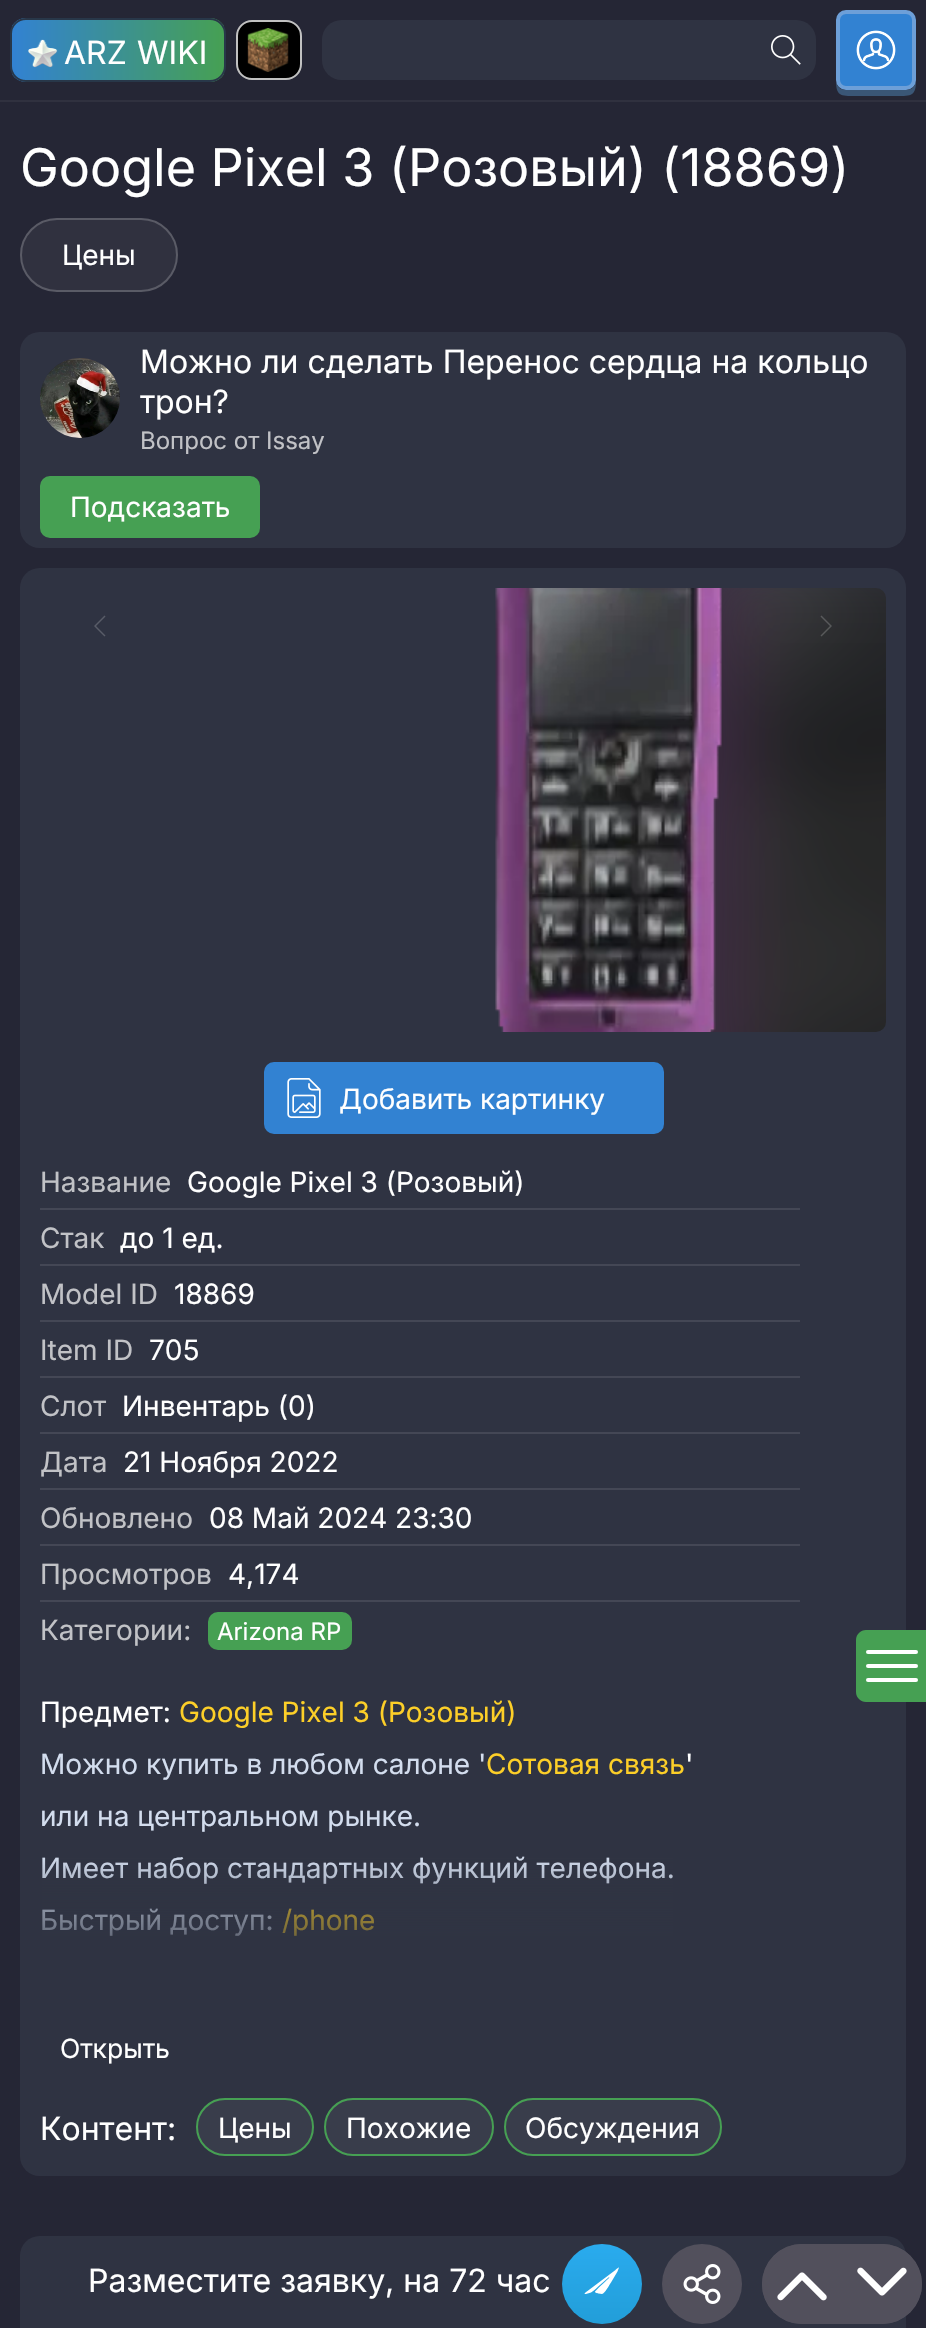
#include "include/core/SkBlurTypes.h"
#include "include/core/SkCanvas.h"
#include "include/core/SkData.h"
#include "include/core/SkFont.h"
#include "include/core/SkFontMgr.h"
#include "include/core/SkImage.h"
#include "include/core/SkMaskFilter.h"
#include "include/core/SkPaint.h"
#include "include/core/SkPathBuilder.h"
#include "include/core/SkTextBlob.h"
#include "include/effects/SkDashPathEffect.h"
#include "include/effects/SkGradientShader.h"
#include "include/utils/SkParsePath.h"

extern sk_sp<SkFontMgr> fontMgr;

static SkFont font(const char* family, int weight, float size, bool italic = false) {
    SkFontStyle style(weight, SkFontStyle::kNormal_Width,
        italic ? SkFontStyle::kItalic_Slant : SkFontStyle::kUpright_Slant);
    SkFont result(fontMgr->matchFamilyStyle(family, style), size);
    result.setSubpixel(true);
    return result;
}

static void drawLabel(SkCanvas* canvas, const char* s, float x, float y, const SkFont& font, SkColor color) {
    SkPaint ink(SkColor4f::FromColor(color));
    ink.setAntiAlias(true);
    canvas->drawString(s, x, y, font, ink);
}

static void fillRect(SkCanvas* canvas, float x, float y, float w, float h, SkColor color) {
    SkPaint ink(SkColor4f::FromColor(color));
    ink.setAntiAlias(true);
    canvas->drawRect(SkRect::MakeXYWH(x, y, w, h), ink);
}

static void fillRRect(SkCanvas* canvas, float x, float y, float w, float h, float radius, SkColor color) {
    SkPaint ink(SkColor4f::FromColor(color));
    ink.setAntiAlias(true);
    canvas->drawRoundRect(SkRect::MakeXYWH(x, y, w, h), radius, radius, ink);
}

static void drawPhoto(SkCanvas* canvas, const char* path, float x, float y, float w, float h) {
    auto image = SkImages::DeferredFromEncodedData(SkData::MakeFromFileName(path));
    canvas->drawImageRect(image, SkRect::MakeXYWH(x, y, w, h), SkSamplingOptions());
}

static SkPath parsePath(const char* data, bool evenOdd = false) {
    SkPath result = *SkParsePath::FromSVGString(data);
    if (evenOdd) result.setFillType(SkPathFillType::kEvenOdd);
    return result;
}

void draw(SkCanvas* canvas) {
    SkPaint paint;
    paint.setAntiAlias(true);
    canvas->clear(0xFF252635);
    fillRect(canvas, 0, 100, 926, 2, 0xFF30313F);
    canvas->save();
    canvas->clipPath(parsePath("M26 18H210C219 18 226 25 226 34V66C226 75 219 82 210 82H26C17 82 10 75 10 66V34C10 25 17 18 26 18Z"), true);
    {
        const SkColor colors[] = {0xFF46A053, 0xFF3282D2};
        const float stops[] = {0, 1};
        const SkPoint ends[] = {{224, 50}, {12, 50}};
        paint.setShader(SkGradientShader::MakeLinear(ends, colors, stops, 2, SkTileMode::kClamp));
        paint.setAlpha(255);
    }
    canvas->drawRect(SkRect::MakeXYWH(12, 18, 212, 64), paint);
    canvas->restore();
    paint.setStroke(true);
    paint.setStrokeWidth(2);
    paint.setShader(nullptr);
    paint.setColor(0xFF283749);
    canvas->drawRoundRect(SkRect::MakeXYWH(11, 19, 214, 62), 15, 15, paint);
    drawPhoto(canvas, "assets/img1.png", 28, 39, 30, 29);
    SkFont font1 = font("Inter", 400, 32);
    drawLabel(canvas, "ARZ", 64, 64, font1, 0xFFFFFFFF);
    drawLabel(canvas, "WIKI", 137, 64, font1, 0xFFFFFFFF);
    paint.setStroke(false);
    paint.setColor(0xFF000000);
    canvas->drawRoundRect(SkRect::MakeXYWH(237, 21, 64, 58), 15, 15, paint);
    paint.setStroke(true);
    paint.setColor(0xFFC1C1C1);
    canvas->drawRoundRect(SkRect::MakeXYWH(237, 21, 64, 58), 15, 15, paint);
    drawPhoto(canvas, "assets/img2.png", 247, 28, 42, 44);
    fillRRect(canvas, 322, 20, 494, 60, 20, 0xFF2F3342);
    drawPhoto(canvas, "assets/img3.png", 771, 35, 30, 30);
    paint.setStroke(false);
    paint.setColor(0xFF3A5676);
    canvas->drawPath(parsePath("M836 80C836 96 840 96 856 96H896C912 96 916 96 916 80C916 86 912 90 906 90H846C840 90 836 86 836 80Z"), paint);
    paint.setColor(0xFF3282D2);
    canvas->drawRoundRect(SkRect::MakeXYWH(838, 12, 76, 76), 8, 8, paint);
    paint.setStroke(true);
    paint.setStrokeWidth(4);
    paint.setColor(0xFF6D9FD8);
    canvas->drawRoundRect(SkRect::MakeXYWH(838, 12, 76, 76), 8, 8, paint);
    drawPhoto(canvas, "assets/img4.png", 856, 30, 40, 40);
    SkFont font2 = font("Inter", 400, 52);
    drawLabel(canvas, "Google Pixel 3 (Розовый) (18869)", 20, 186, font2, 0xFFFFFFFF);
    fillRRect(canvas, 20, 218, 158, 74, 37, 0xFF30313F);
    paint.setStrokeWidth(2);
    paint.setColor(0x33FFFFFF);
    canvas->drawRoundRect(SkRect::MakeXYWH(21, 219, 156, 72), 36, 36, paint);
    SkFont font3 = font("Inter", 400, 28);
    drawLabel(canvas, "Цены", 62, 265, font3, 0xFFFFFFFF);
    fillRRect(canvas, 20, 332, 886, 216, 20, 0xFF2F3342);
    paint.setStroke(false);
    paint.setColor(0xFF252635);
    canvas->drawCircle(80, 398, 40, paint);
    drawPhoto(canvas, "assets/img5.png", 40, 358, 80, 80);
    drawLabel(canvas, "Можно ли сделать Перенос сердца на кольцо", 140, 373, font1, 0xFFFFFFFF);
    drawLabel(canvas, "трон?", 140, 413, font1, 0xFFFFFFFF);
    SkFont font4 = font("Inter", 400, 24);
    drawLabel(canvas, "Вопрос от Issay", 140, 449, font4, 0xFFC1C2C6);
    fillRRect(canvas, 40, 476, 220, 62, 10, 0xFF46A053);
    drawLabel(canvas, "Подсказать", 70, 517, font3, 0xFFFFFFFF);
    fillRRect(canvas, 20, 568, 886, 1608, 20, 0xFF2F3342);
    drawPhoto(canvas, "assets/img7.png", 710, 588, 176, 444);
    drawPhoto(canvas, "assets/img6.png", 495, 588, 227, 444);
    paint.setColor(0xFF595C68);
    canvas->drawPath(parsePath("M104.5 636.5L105.5 635.5L96 626L105.5 616.5L104.5 615.5L94 626Z"), paint);
    paint.setColor(0x33FFFFFF);
    canvas->drawPath(parsePath("M821.5 636.5L820.5 635.5L830 626L820.5 616.5L821.5 615.5L832 626Z"), paint);
    fillRRect(canvas, 264, 1062, 400, 72, 10, 0xFF3282D2);
    drawPhoto(canvas, "assets/img8.png", 287, 1078, 34, 40);
    drawLabel(canvas, "Добавить картинку", 339, 1109, font3, 0xFFFFFFFF);
    drawLabel(canvas, "Название", 40, 1192, font3, 0xFFC1C2C6);
    drawLabel(canvas, "Google Pixel 3 (Розовый)", 187, 1192, font3, 0xFFFFFFFF);
    fillRect(canvas, 40, 1208, 760, 2, 0xFF444755);
    drawLabel(canvas, "Стак", 40, 1248, font3, 0xFFC1C2C6);
    drawLabel(canvas, "до 1 ед.", 120, 1248, font3, 0xFFFFFFFF);
    fillRect(canvas, 40, 1264, 760, 2, 0xFF444755);
    drawLabel(canvas, "Model ID", 40, 1304, font3, 0xFFC1C2C6);
    drawLabel(canvas, "18869", 174, 1304, font3, 0xFFFFFFFF);
    fillRect(canvas, 40, 1320, 760, 2, 0xFF444755);
    drawLabel(canvas, "Item ID", 40, 1360, font3, 0xFFC1C2C6);
    drawLabel(canvas, "705", 149, 1360, font3, 0xFFFFFFFF);
    fillRect(canvas, 40, 1376, 760, 2, 0xFF444755);
    drawLabel(canvas, "Слот", 40, 1416, font3, 0xFFC1C2C6);
    drawLabel(canvas, "Инвентарь (0)", 122, 1416, font3, 0xFFFFFFFF);
    fillRect(canvas, 40, 1432, 760, 2, 0xFF444755);
    drawLabel(canvas, "Дата", 40, 1472, font3, 0xFFC1C2C6);
    drawLabel(canvas, "21 Ноября 2022", 123, 1472, font3, 0xFFFFFFFF);
    fillRect(canvas, 40, 1488, 760, 2, 0xFF444755);
    drawLabel(canvas, "Обновлено", 40, 1528, font3, 0xFFC1C2C6);
    drawLabel(canvas, "08 Май 2024 23:30", 209, 1528, font3, 0xFFFFFFFF);
    fillRect(canvas, 40, 1544, 760, 2, 0xFF444755);
    drawLabel(canvas, "Просмотров", 40, 1584, font3, 0xFFC1C2C6);
    drawLabel(canvas, "4,174", 228, 1584, font3, 0xFFFFFFFF);
    fillRect(canvas, 40, 1600, 760, 2, 0xFF444755);
    drawLabel(canvas, "Категории:", 40, 1640, font3, 0xFFC1C2C6);
    fillRRect(canvas, 208, 1612, 144, 38, 10, 0xFF46A053);
    drawLabel(canvas, "Arizona RP", 217, 1640, font4, 0xFFFFFFFF);
    drawLabel(canvas, "Предмет:", 40, 1722, font3, 0xFFFFFFFF);
    drawLabel(canvas, "Google Pixel 3 (Розовый)", 179, 1722, font3, 0xFFFDCF28);
    drawLabel(canvas, "Можно купить в любом салоне '", 40, 1774, font3, 0xFFD3DDEE);
    drawLabel(canvas, "Сотовая связь", 486, 1774, font3, 0xFFFDCF28);
    drawLabel(canvas, "'", 685, 1774, font3, 0xFFFFFFFF);
    drawLabel(canvas, "или на центральном рынке.", 40, 1826, font3, 0xFFD3DDEE);
    drawLabel(canvas, "Имеет набор стандартных функций телефона.", 40, 1878, font3, 0xFFD3DDEE);
    drawLabel(canvas, "Быстрый доступ:", 40, 1930, font3, 0xFFD3DDEE);
    drawLabel(canvas, "/phone", 282, 1930, font3, 0xFFFDCF28);
    {
        const SkColor colors[] = {0xFF2F3342, 0x002F3342};
        const float stops[] = {0.09f, 0.71f};
        const SkPoint ends[] = {{420, 1996}, {420, 1796}};
        paint.setShader(SkGradientShader::MakeLinear(ends, colors, stops, 2, SkTileMode::kClamp));
        paint.setAlpha(255);
    }
    canvas->drawRect(SkRect::MakeXYWH(42, 1857, 631, 79), paint);
    SkFont font5 = font("Inter", 400, 26.5f);
    drawLabel(canvas, "Открыть", 60, 2058, font5, 0xFFFFFFFF);
    drawLabel(canvas, "Контент:", 40, 2140, font1, 0xFFFFFFFF);
    paint.setShader(nullptr);
    paint.setColor(0xFF393D4B);
    canvas->drawRoundRect(SkRect::MakeXYWH(197, 2099, 116, 56), 28, 28, paint);
    paint.setStroke(true);
    paint.setColor(0xFF46A053);
    canvas->drawRoundRect(SkRect::MakeXYWH(197, 2099, 116, 56), 28, 28, paint);
    drawLabel(canvas, "Цены", 218, 2138, font3, 0xFFFFFFFF);
    paint.setStroke(false);
    paint.setColor(0xFF393D4B);
    canvas->drawRoundRect(SkRect::MakeXYWH(325, 2099, 168, 56), 28, 28, paint);
    paint.setStroke(true);
    paint.setColor(0xFF46A053);
    canvas->drawRoundRect(SkRect::MakeXYWH(325, 2099, 168, 56), 28, 28, paint);
    drawLabel(canvas, "Похожие", 346, 2138, font3, 0xFFFFFFFF);
    paint.setStroke(false);
    paint.setColor(0xFF393D4B);
    canvas->drawRoundRect(SkRect::MakeXYWH(505, 2099, 216, 56), 28, 28, paint);
    paint.setStroke(true);
    paint.setColor(0xFF46A053);
    canvas->drawRoundRect(SkRect::MakeXYWH(505, 2099, 216, 56), 28, 28, paint);
    drawLabel(canvas, "Обсуждения", 525, 2138, font3, 0xFFFFFFFF);
    fillRRect(canvas, 20, 2236, 886, 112, 20, 0xFF2F3342);
    drawLabel(canvas, "Разместите заявку, на 72 час", 88, 2292, font1, 0xFFFFFFFF);
    paint.setStroke(false);
    canvas->drawPath(parsePath("M866 1630H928V1702H866C860.5 1702 856 1697.5 856 1692V1640C856 1634.5 860.5 1630 866 1630Z"), paint);
    fillRRect(canvas, 866, 1664, 52, 4, 2, 0xFFFFFFFF);
    fillRRect(canvas, 866, 1650, 52, 4, 2, 0xFFFFFFFF);
    fillRRect(canvas, 866, 1678, 52, 4, 2, 0xFFFFFFFF);
    {
        const SkColor colors[] = {0xFF2AABEE, 0xFF229ED9};
        const float stops[] = {0, 1};
        const SkPoint ends[] = {{602, 2244}, {602, 2323}};
        paint.setShader(SkGradientShader::MakeLinear(ends, colors, stops, 2, SkTileMode::kClamp));
        paint.setAlpha(255);
    }
    canvas->drawCircle(602, 2284, 40, paint);
    paint.setShader(nullptr);
    paint.setColor(0xFFFFFFFF);
    canvas->drawPath(parsePath("M587.5 2291L615.5 2270C615.5 2269.5 618.5 2267.5 619 2267.5L617.5 2271.5L611 2282.5C609.5 2284.5 605 2293.5 602 2294L598.5 2293.5C598 2293.5 595 2292.5 595 2292C595 2290.5 610 2278 609.5 2277L608.5 2277.5L600.5 2284.5C597.5 2287 594.5 2290.5 591 2292.5L586 2294C582.5 2294.5 586.5 2291.5 587.5 2291Z", true), paint);
    paint.setColor(0xFF52505C);
    canvas->drawCircle(702, 2284, 40, paint);
    drawPhoto(canvas, "assets/img9.png", 683, 2264, 38, 40);
    fillRRect(canvas, 762, 2244, 160, 80, 40, 0xFF52505C);
    canvas->drawCircle(802, 2284, 40, paint);
    drawPhoto(canvas, "assets/img10.png", 777, 2272, 50, 29);
    canvas->drawCircle(882, 2284, 40, paint);
    drawPhoto(canvas, "assets/img11.png", 857, 2267, 50, 29);
}
